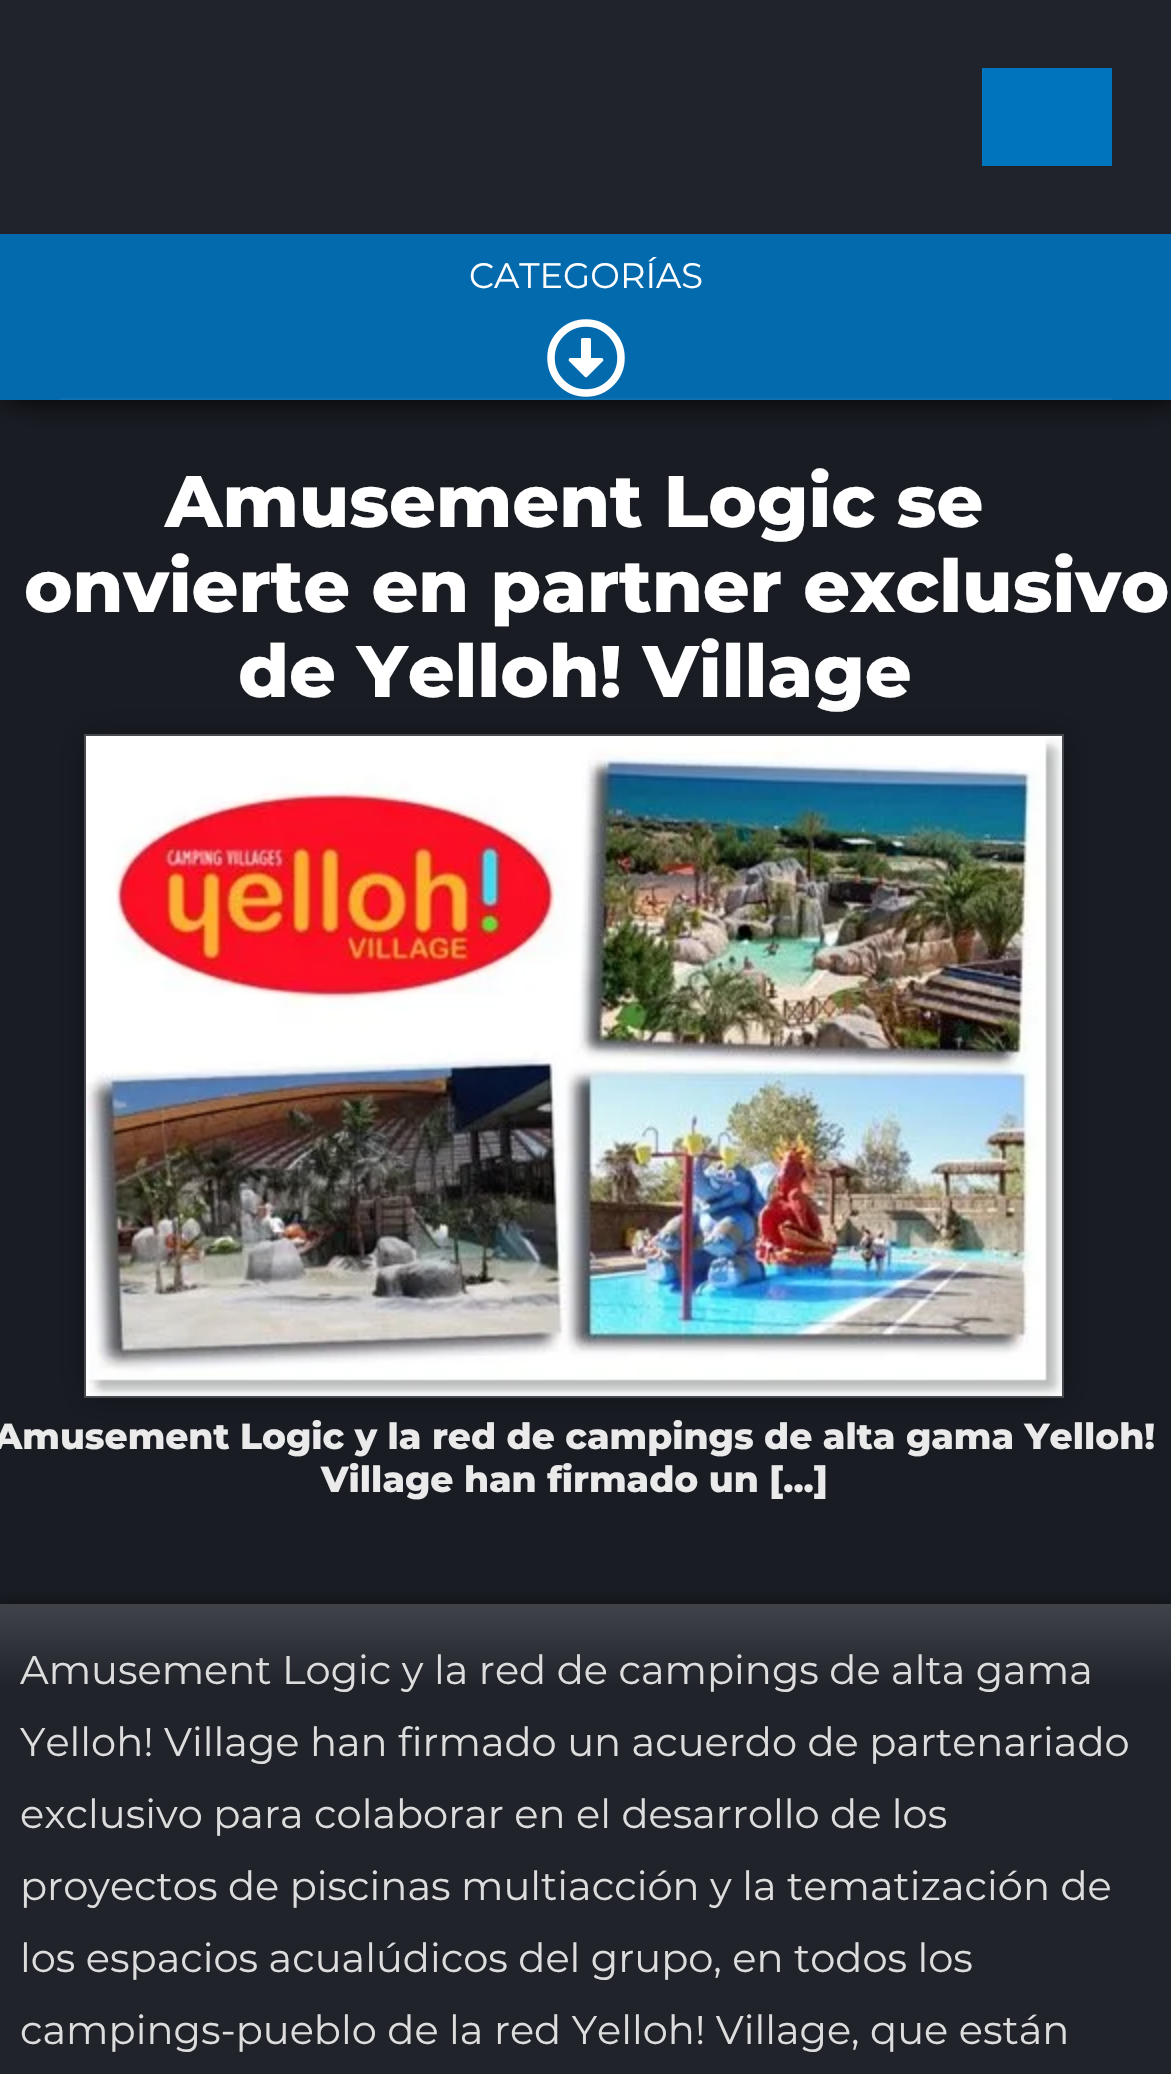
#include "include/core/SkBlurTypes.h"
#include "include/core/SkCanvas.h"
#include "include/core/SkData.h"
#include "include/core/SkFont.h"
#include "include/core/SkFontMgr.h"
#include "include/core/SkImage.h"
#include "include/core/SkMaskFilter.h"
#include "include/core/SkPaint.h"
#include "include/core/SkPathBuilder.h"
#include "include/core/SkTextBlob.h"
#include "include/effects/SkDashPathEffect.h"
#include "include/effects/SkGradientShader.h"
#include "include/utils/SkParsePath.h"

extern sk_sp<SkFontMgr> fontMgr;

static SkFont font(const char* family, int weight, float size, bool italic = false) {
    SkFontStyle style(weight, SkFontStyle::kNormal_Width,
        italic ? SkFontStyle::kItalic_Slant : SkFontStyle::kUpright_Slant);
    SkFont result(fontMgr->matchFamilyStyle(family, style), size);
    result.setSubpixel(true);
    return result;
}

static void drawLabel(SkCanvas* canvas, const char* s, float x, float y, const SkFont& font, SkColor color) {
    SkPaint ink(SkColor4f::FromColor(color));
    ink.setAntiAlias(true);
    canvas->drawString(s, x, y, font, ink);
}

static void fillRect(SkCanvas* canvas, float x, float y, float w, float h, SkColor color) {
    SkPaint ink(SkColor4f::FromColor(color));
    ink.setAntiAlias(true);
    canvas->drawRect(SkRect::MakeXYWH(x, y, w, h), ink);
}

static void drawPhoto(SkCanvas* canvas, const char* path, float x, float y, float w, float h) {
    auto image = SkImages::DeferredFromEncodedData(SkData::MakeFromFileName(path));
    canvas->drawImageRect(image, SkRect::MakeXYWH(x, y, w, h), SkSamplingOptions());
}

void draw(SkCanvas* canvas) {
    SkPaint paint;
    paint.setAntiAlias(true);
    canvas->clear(0xFF191C23);
    paint.setColor(0xFF000000);
    paint.setMaskFilter(SkMaskFilter::MakeBlur(kNormal_SkBlurStyle, 15));
    canvas->drawRect(SkRect::MakeXYWH(6, 234, 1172, 166), paint);
    paint.setMaskFilter(nullptr);
    fillRect(canvas, 0, 0, 1171, 234, 0xFF20232C);
    fillRect(canvas, 982, 68, 130, 98, 0xFF0075BE);
    fillRect(canvas, 0, 234, 1171, 166, 0xFF036BAD);
    fillRect(canvas, 60, 398, 1052, 2, 0xFF1072B1);
    SkFont font1 = font("Montserrat", 400, 35.25f);
    drawLabel(canvas, "CATEGORÍAS", 469, 288, font1, 0xFFFFFFFF);
    drawPhoto(canvas, "assets/img1.png", 547, 319, 78, 78);
    SkFont font2 = font("Montserrat", 800, 73);
    drawLabel(canvas, "Amusement Logic se", 165, 527, font2, 0xFFFFFFFF);
    drawLabel(canvas, "onvierte en partner exclusivo", 24, 612, font2, 0xFFFFFFFF);
    drawLabel(canvas, "de Yelloh! Village", 238, 697, font2, 0xFFFFFFFF);
    paint.setColor(0x4D000000);
    paint.setMaskFilter(SkMaskFilter::MakeBlur(kNormal_SkBlurStyle, 15));
    canvas->drawRect(SkRect::MakeXYWH(84, 734, 980, 664), paint);
    paint.setMaskFilter(nullptr);
    paint.setStroke(true);
    paint.setStrokeWidth(2);
    paint.setColor(0xFF47494F);
    canvas->drawRect(SkRect::MakeXYWH(85, 735, 978, 662), paint);
    drawPhoto(canvas, "assets/img2.png", 86, 736, 976, 660);
    SkFont font3 = font("Montserrat", 800, 36);
    drawLabel(canvas, "Amusement Logic y la red de campings de alta gama Yelloh!", -6, 1449, font3, 0xFFEAEAEA);
    drawLabel(canvas, "Village han firmado un [...]", 321, 1492, font3, 0xFFEAEAEA);
    paint.setStroke(false);
    paint.setColor(0x80000000);
    paint.setMaskFilter(SkMaskFilter::MakeBlur(kNormal_SkBlurStyle, 7));
    canvas->drawRect(SkRect::MakeXYWH(0, 1604, 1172, 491), paint);
    paint.setMaskFilter(nullptr);
    {
        const SkColor colors[] = {0xFF404349, 0xFF20232A};
        const float stops[] = {0, 0.02f};
        const SkPoint ends[] = {{586, 1604}, {586, 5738}};
        paint.setShader(SkGradientShader::MakeLinear(ends, colors, stops, 2, SkTileMode::kClamp));
        paint.setAlpha(255);
    }
    canvas->drawRect(SkRect::MakeXYWH(0, 1604, 1171, 470), paint);
    SkFont font4 = font("Montserrat", 400, 40);
    drawLabel(canvas, "Amusement Logic y la red de campings de alta gama", 20, 1684, font4, 0xFFDDDDDD);
    drawLabel(canvas, "Yelloh! Village han firmado un acuerdo de partenariado", 20, 1756, font4, 0xFFDDDDDD);
    drawLabel(canvas, "exclusivo para colaborar en el desarrollo de los", 20, 1828, font4, 0xFFDDDDDD);
    drawLabel(canvas, "proyectos de piscinas multiacción y la tematización de", 20, 1900, font4, 0xFFDDDDDD);
    drawLabel(canvas, "los espacios acualúdicos del grupo, en todos los", 20, 1972, font4, 0xFFDDDDDD);
    drawLabel(canvas, "campings-pueblo de la red Yelloh! Village, que están", 20, 2044, font4, 0xFFDDDDDD);
}
